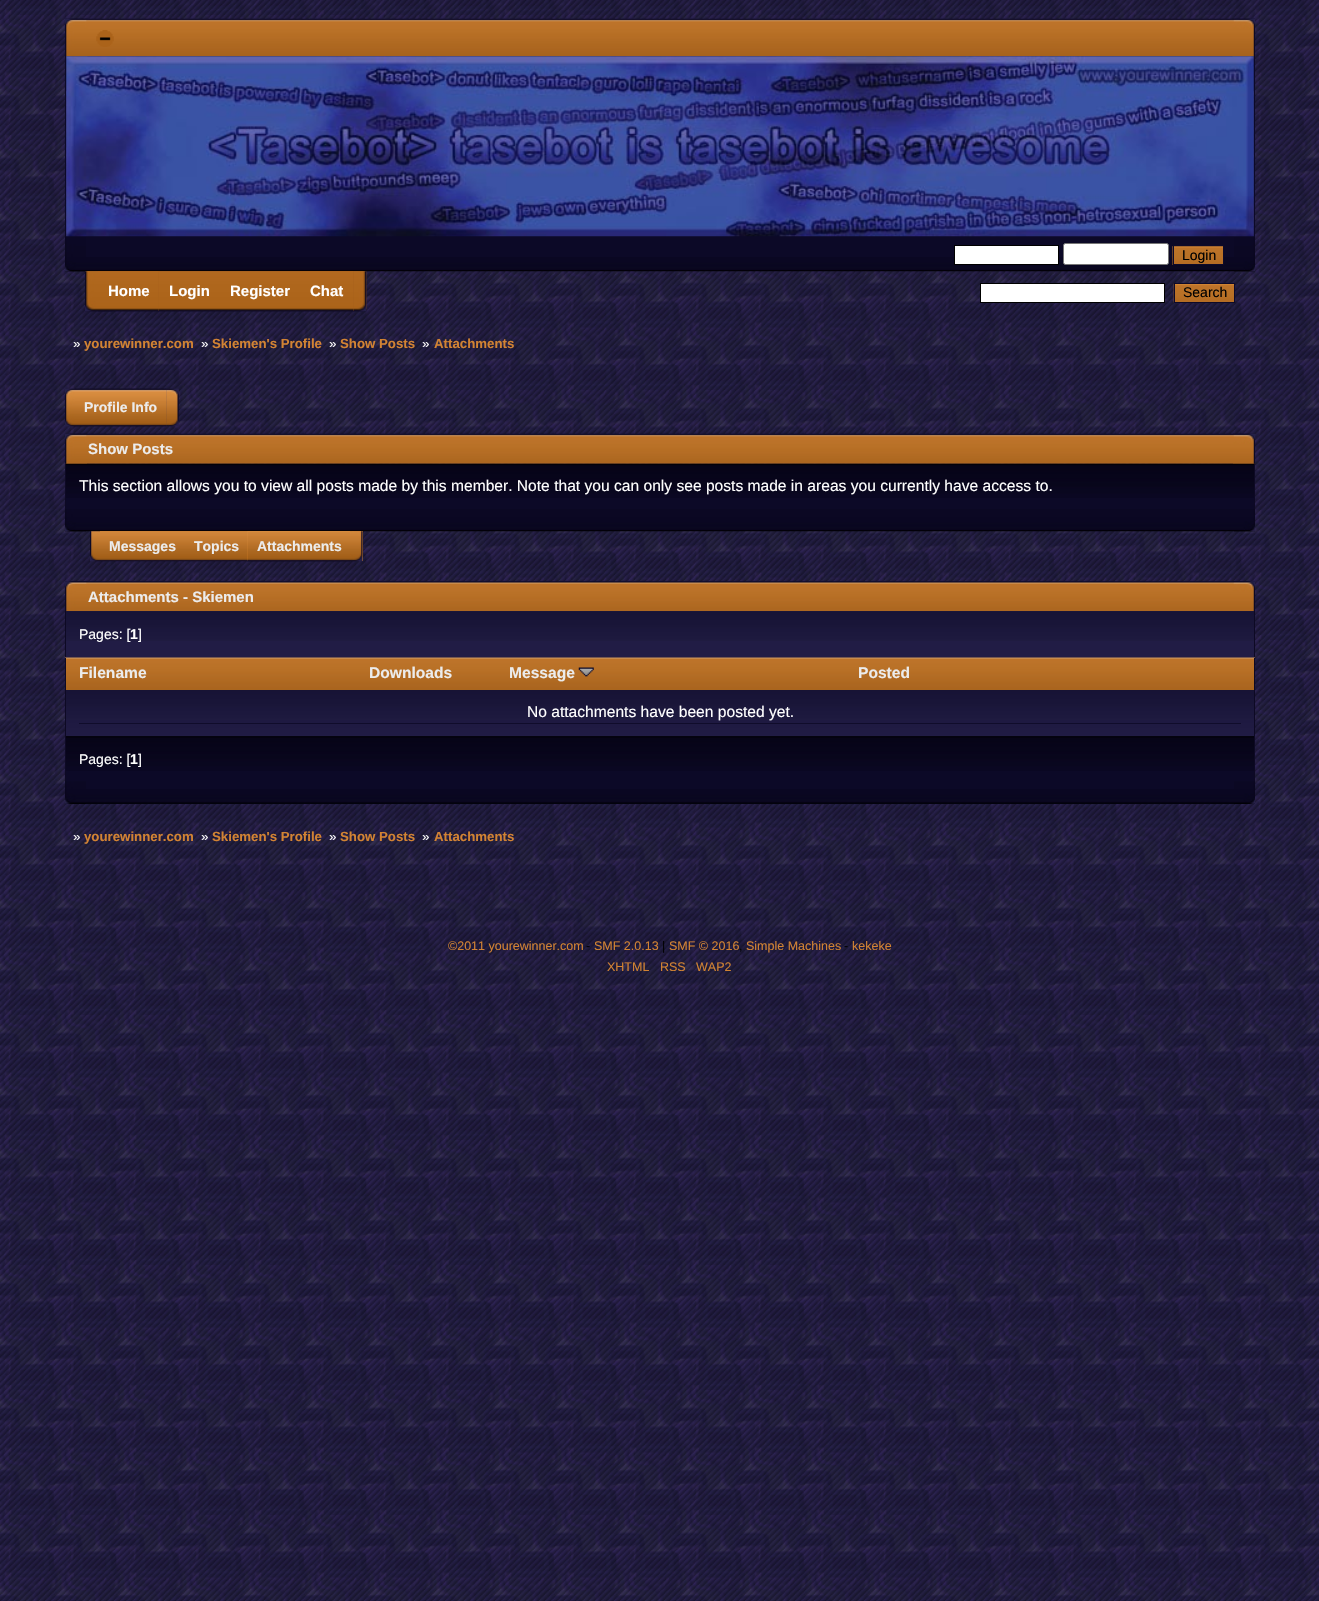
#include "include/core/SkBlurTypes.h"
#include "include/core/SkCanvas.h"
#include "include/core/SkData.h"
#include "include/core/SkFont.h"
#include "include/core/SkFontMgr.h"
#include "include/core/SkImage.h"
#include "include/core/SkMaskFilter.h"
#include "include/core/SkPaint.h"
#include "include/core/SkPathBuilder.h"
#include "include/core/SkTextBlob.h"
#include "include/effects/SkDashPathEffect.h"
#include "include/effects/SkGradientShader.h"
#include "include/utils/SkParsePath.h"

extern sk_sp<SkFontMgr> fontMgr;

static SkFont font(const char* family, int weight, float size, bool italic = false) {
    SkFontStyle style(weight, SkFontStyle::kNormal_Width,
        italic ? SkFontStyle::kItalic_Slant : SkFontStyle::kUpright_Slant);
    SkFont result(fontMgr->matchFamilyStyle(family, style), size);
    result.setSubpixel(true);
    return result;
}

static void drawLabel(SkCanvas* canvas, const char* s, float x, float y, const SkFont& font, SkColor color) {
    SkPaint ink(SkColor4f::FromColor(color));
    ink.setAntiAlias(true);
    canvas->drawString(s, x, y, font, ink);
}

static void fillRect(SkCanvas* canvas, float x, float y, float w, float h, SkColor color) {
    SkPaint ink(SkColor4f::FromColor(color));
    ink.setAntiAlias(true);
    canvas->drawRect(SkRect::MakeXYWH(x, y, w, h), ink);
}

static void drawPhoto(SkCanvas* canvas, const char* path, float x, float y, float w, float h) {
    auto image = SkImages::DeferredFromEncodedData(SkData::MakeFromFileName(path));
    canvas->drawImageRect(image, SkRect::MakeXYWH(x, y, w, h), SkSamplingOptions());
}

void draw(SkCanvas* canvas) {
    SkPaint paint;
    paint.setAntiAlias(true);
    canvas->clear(0xFFFFFFFF);
    drawPhoto(canvas, "assets/img1.png", 0, 0, 1319, 1601);
    drawPhoto(canvas, "assets/img2.png", 65, 18, 1190, 39);
    drawPhoto(canvas, "assets/img6.png", 66, 56, 1188, 35);
    fillRect(canvas, 65, 56, 1, 180, 0xFF0C0927);
    drawPhoto(canvas, "assets/img3.png", 65, 18, 23, 39);
    drawPhoto(canvas, "assets/img4.png", 96, 30, 18, 17);
    fillRect(canvas, 1254, 56, 1, 180, 0xFF0C0927);
    drawPhoto(canvas, "assets/img5.png", 1232, 18, 23, 39);
    fillRect(canvas, 65, 236, 1190, 21, 0xFF0C0927);
    drawPhoto(canvas, "assets/img7.png", 66, 56, 1188, 181);
    drawPhoto(canvas, "assets/img8.png", 65, 257, 1190, 15);
    drawPhoto(canvas, "assets/img9.png", 65, 237, 21, 35);
    drawPhoto(canvas, "assets/img10.png", 1234, 237, 21, 35);
    paint.setColor(0xFFFFFFFF);
    canvas->drawRect(SkRect::MakeXYWH(954.5f, 245.5f, 104, 19), paint);
    paint.setStroke(true);
    paint.setStrokeWidth(1);
    paint.setColor(0xFF000000);
    canvas->drawRect(SkRect::MakeXYWH(954.5f, 245.5f, 104, 19), paint);
    paint.setStroke(false);
    paint.setColor(0xFFFFFFFF);
    canvas->drawRoundRect(SkRect::MakeXYWH(1063.5f, 243.5f, 105, 21), 2, 2, paint);
    paint.setStroke(true);
    paint.setColor(0xFF767676);
    canvas->drawRoundRect(SkRect::MakeXYWH(1063.5f, 243.5f, 105, 21), 2, 2, paint);
    drawPhoto(canvas, "assets/img11.png", 1172, 246, 51, 19);
    paint.setColor(0xFF0D0A29);
    canvas->drawRect(SkRect::MakeXYWH(1173.5f, 245.5f, 50, 19), paint);
    SkFont font1 = font("Liberation Sans", 400, 14);
    drawLabel(canvas, "Login", 1182, 260, font1, 0xFF000000);
    drawPhoto(canvas, "assets/img12.png", 85, 271, 282, 41);
    drawPhoto(canvas, "assets/img13.png", 85, 271, 27, 41);
    fillRect(canvas, 98, 271, 61, 40, 0xFFA05D19);
    drawPhoto(canvas, "assets/img14.png", 98, 271, 61, 41);
    SkFont font2 = font("Liberation Sans", 700, 15);
    drawLabel(canvas, "Home", 108, 296, font2, 0xFFFFFFFF);
    drawPhoto(canvas, "assets/img15.png", 158, 271, 62, 41);
    drawLabel(canvas, "Login", 169, 296, font2, 0xFFFFFFFF);
    drawPhoto(canvas, "assets/img16.png", 220, 271, 80, 41);
    drawLabel(canvas, "Register", 230, 296, font2, 0xFFFFFFFF);
    fillRect(canvas, 300, 271, 54, 40, 0xFFA05D19);
    drawPhoto(canvas, "assets/img17.png", 300, 271, 54, 41);
    drawLabel(canvas, "Chat", 310, 296, font2, 0xFFFFFFFF);
    drawPhoto(canvas, "assets/img18.png", 354, 271, 13, 41);
    paint.setStroke(false);
    paint.setColor(0xFFFFFFFF);
    canvas->drawRect(SkRect::MakeXYWH(980.5f, 283.5f, 184, 19), paint);
    paint.setStroke(true);
    paint.setColor(0xFF000000);
    canvas->drawRect(SkRect::MakeXYWH(980.5f, 283.5f, 184, 19), paint);
    drawPhoto(canvas, "assets/img19.png", 1173, 283, 61, 20);
    paint.setColor(0xFF0D0A29);
    canvas->drawRect(SkRect::MakeXYWH(1174.5f, 283.5f, 60, 19), paint);
    drawLabel(canvas, "Search", 1183, 297, font1, 0xFF000000);
    SkFont font3 = font("Liberation Sans", 400, 13.25f);
    drawLabel(canvas, "»", 73, 348, font3, 0xFFFFFFFF);
    SkFont font4 = font("Liberation Sans", 700, 13.25f);
    drawLabel(canvas, "yourewinner.com", 84, 348, font4, 0xFFD28333);
    drawLabel(canvas, "»", 201, 348, font3, 0xFFFFFFFF);
    drawLabel(canvas, "Skiemen's Profile", 212, 348, font4, 0xFFD28333);
    drawLabel(canvas, "»", 329, 348, font3, 0xFFFFFFFF);
    drawLabel(canvas, "Show Posts", 340, 348, font4, 0xFFD28333);
    drawLabel(canvas, "»", 422, 348, font3, 0xFFFFFFFF);
    drawLabel(canvas, "Attachments", 434, 348, font4, 0xFFD28333);
    drawPhoto(canvas, "assets/img20.png", 65, 388, 10, 39);
    drawPhoto(canvas, "assets/img21.png", 166, 388, 13, 39);
    drawPhoto(canvas, "assets/img22.png", 75, 388, 92, 39);
    drawPhoto(canvas, "assets/img23.png", 75, 388, 92, 39);
    SkFont font5 = font("Liberation Sans", 700, 14);
    drawLabel(canvas, "Profile Info", 84, 412, font5, 0xFFECECEC);
    drawPhoto(canvas, "assets/img24.png", 65, 433, 1190, 31);
    drawPhoto(canvas, "assets/img25.png", 65, 433, 22, 31);
    drawLabel(canvas, "Show Posts", 88, 454, font2, 0xFFECECEC);
    drawPhoto(canvas, "assets/img26.png", 1233, 433, 22, 31);
    fillRect(canvas, 66, 498, 1188, 11, 0xFF0C0927);
    drawPhoto(canvas, "assets/img27.png", 65, 463, 1190, 35);
    fillRect(canvas, 1254, 464, 1, 45, 0xFF0D0924);
    fillRect(canvas, 65, 464, 1, 45, 0xFF0D0924);
    SkFont font6 = font("Liberation Sans", 400, 15.6f);
    drawLabel(canvas, "This section allows you to view all posts made by this member. Note that you can only see posts made in areas you currently have access to.", 79, 491, font6, 0xFFFFFFFF);
    drawPhoto(canvas, "assets/img28.png", 65, 509, 1190, 23);
    drawPhoto(canvas, "assets/img29.png", 65, 509, 21, 23);
    drawPhoto(canvas, "assets/img30.png", 1234, 509, 21, 23);
    drawPhoto(canvas, "assets/img31.png", 90, 531, 10, 31);
    fillRect(canvas, 100, 531, 263, 30, 0xFFC0782E);
    drawPhoto(canvas, "assets/img32.png", 350, 531, 13, 31);
    drawPhoto(canvas, "assets/img33.png", 100, 531, 85, 31);
    drawLabel(canvas, "Messages", 109, 551, font5, 0xFFECECEC);
    drawPhoto(canvas, "assets/img34.png", 185, 531, 63, 31);
    drawLabel(canvas, "Topics", 194, 551, font5, 0xFFECECEC);
    drawPhoto(canvas, "assets/img35.png", 247, 531, 103, 31);
    drawPhoto(canvas, "assets/img36.png", 247, 531, 103, 31);
    drawLabel(canvas, "Attachments", 257, 551, font5, 0xFFECECEC);
    drawPhoto(canvas, "assets/img37.png", 65, 581, 1190, 30);
    drawPhoto(canvas, "assets/img38.png", 65, 581, 23, 30);
    drawLabel(canvas, "Attachments - Skiemen", 88, 602, font2, 0xFFECECEC);
    drawPhoto(canvas, "assets/img39.png", 1232, 581, 23, 30);
    fillRect(canvas, 66, 611, 1188, 47, 0xFF211C45);
    drawPhoto(canvas, "assets/img40.png", 66, 611, 1188, 30);
    fillRect(canvas, 1254, 611, 1, 47, 0xFF0D0924);
    fillRect(canvas, 65, 611, 1, 47, 0xFF0D0924);
    drawLabel(canvas, "Pages: [", 79, 639, font1, 0xFFFFFFFF);
    drawLabel(canvas, "1", 130, 639, font5, 0xFFFFFFFF);
    drawLabel(canvas, "]", 138, 639, font1, 0xFFFFFFFF);
    drawPhoto(canvas, "assets/img41.png", 65, 657, 1190, 33);
    fillRect(canvas, 1254, 658, 1, 123, 0xFF0D0924);
    fillRect(canvas, 65, 658, 1, 123, 0xFF0D0924);
    SkFont font7 = font("Liberation Sans", 700, 15.6f);
    drawLabel(canvas, "Filename", 79, 678, font7, 0xFFECECEC);
    drawLabel(canvas, "Downloads", 369, 678, font7, 0xFFECECEC);
    drawLabel(canvas, "Message", 509, 678, font7, 0xFFECECEC);
    drawPhoto(canvas, "assets/img42.png", 578, 667, 16, 10);
    drawLabel(canvas, "Posted", 858, 678, font7, 0xFFECECEC);
    drawPhoto(canvas, "assets/img43.png", 66, 690, 1188, 46);
    fillRect(canvas, 79, 723, 1162, 1, 0xFF100C2B);
    drawLabel(canvas, "No attachments have been posted yet.", 527, 717, font6, 0xFFFFFFFF);
    fillRect(canvas, 66, 736, 1188, 45, 0xFF0C0927);
    drawPhoto(canvas, "assets/img6.png", 66, 736, 1188, 35);
    drawLabel(canvas, "Pages: [", 79, 764, font1, 0xFFFFFFFF);
    drawLabel(canvas, "1", 130, 764, font5, 0xFFFFFFFF);
    drawLabel(canvas, "]", 138, 764, font1, 0xFFFFFFFF);
    fillRect(canvas, 65, 781, 1190, 23, 0xFF0C0927);
    drawPhoto(canvas, "assets/img44.png", 65, 789, 1190, 15);
    drawPhoto(canvas, "assets/img45.png", 65, 781, 21, 23);
    drawPhoto(canvas, "assets/img46.png", 1234, 781, 21, 23);
    drawLabel(canvas, "»", 73, 841, font3, 0xFFFFFFFF);
    drawLabel(canvas, "yourewinner.com", 84, 841, font4, 0xFFD28333);
    drawLabel(canvas, "»", 201, 841, font3, 0xFFFFFFFF);
    drawLabel(canvas, "Skiemen's Profile", 212, 841, font4, 0xFFD28333);
    drawLabel(canvas, "»", 329, 841, font3, 0xFFFFFFFF);
    drawLabel(canvas, "Show Posts", 340, 841, font4, 0xFFD28333);
    drawLabel(canvas, "»", 422, 841, font3, 0xFFFFFFFF);
    drawLabel(canvas, "Attachments", 434, 841, font4, 0xFFD28333);
    SkFont font8 = font("Liberation Sans", 400, 12.5f);
    drawLabel(canvas, "©2011 yourewinner.com", 448, 950, font8, 0xFFD28333);
    drawLabel(canvas, "-", 586, 950, font8, 0xFF000000);
    drawLabel(canvas, "SMF 2.0.13", 594, 950, font8, 0xFFD28333);
    drawLabel(canvas, "|", 662, 950, font8, 0xFF000000);
    drawLabel(canvas, "SMF © 2016", 669, 950, font8, 0xFFD28333);
    drawLabel(canvas, "Simple Machines", 746, 950, font8, 0xFFD28333);
    drawLabel(canvas, "-", 844, 950, font8, 0xFF000000);
    drawLabel(canvas, "kekeke", 852, 950, font8, 0xFFD28333);
    drawLabel(canvas, ",", 739, 950, font8, 0xFF000000);
    drawLabel(canvas, "XHTML", 607, 971, font8, 0xFFD28333);
    drawLabel(canvas, "RSS", 660, 971, font8, 0xFFD28333);
    drawLabel(canvas, "WAP2", 696, 971, font8, 0xFFD28333);
}
